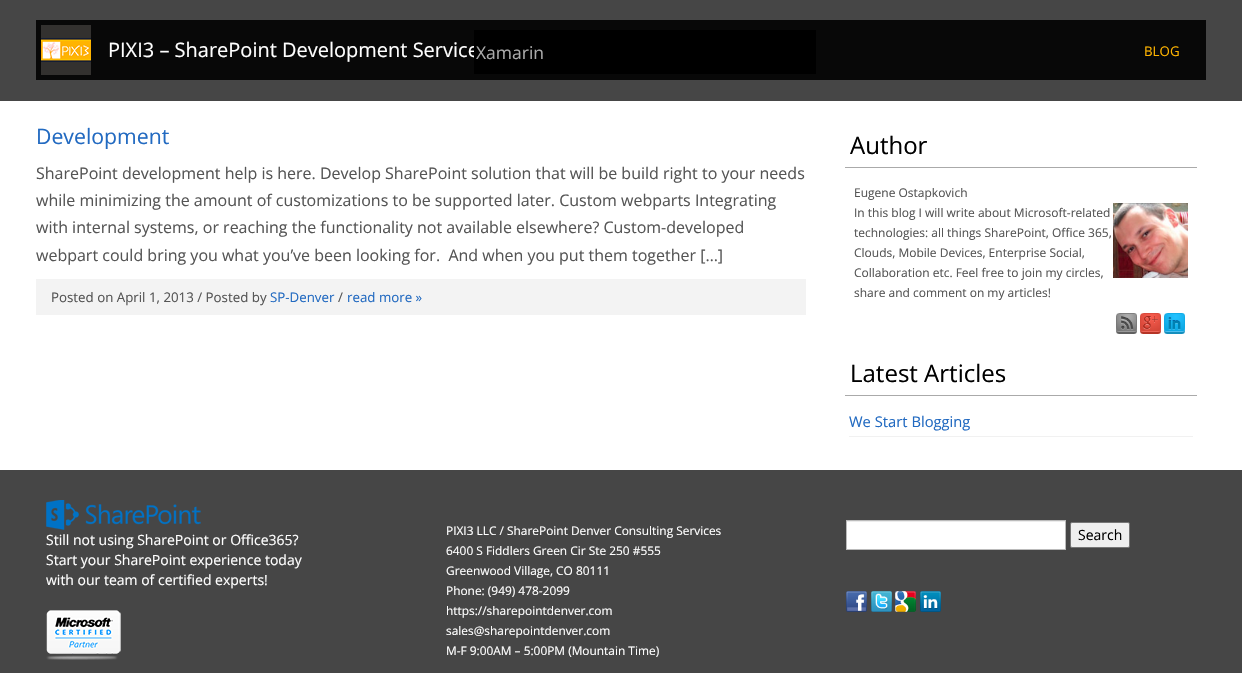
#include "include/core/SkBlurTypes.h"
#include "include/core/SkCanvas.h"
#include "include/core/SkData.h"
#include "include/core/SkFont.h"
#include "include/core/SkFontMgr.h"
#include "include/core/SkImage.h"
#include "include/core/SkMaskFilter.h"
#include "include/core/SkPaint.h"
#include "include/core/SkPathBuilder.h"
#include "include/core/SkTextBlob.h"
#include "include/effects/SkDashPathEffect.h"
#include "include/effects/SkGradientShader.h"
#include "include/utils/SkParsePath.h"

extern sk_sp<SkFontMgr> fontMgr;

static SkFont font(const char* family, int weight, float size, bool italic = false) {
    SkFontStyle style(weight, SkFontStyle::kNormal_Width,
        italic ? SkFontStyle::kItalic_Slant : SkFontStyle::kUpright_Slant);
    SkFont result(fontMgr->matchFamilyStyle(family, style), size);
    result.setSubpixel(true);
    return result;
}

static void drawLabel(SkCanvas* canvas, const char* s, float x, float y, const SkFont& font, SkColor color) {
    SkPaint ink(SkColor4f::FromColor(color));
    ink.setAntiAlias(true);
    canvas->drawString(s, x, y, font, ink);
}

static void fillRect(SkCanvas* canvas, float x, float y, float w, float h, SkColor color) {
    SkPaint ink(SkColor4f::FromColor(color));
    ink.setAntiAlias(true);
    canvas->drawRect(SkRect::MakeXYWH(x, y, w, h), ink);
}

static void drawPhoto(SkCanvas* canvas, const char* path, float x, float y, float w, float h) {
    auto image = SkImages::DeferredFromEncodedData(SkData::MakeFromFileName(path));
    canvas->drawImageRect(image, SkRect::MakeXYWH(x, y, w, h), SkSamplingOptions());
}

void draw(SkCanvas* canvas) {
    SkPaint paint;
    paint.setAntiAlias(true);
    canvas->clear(0xFFFFFFFF);
    fillRect(canvas, 0, 0, 1242, 101, 0xFF464646);
    fillRect(canvas, 36, 20, 1170, 60, 0xFF080808);
    drawPhoto(canvas, "assets/img1.png", 41, 25, 50, 50);
    SkFont font1 = font("Open Sans", 400, 20);
    drawLabel(canvas, "PIXI3 – SharePoint Development Service", 108, 57, font1, 0xFFFFFFFF);
    SkFont font2 = font("Open Sans", 400, 13.3f);
    drawLabel(canvas, "BLOG", 1144, 56, font2, 0xFFFFB400);
    fillRect(canvas, 474, 30, 342, 44, 0xFF000000);
    SkFont font3 = font("Open Sans", 400, 17.5f);
    drawLabel(canvas, "Xamarin", 476, 59, font3, 0xFFAAAAAA);
    SkFont font4 = font("Open Sans", 400, 21.25f);
    drawLabel(canvas, "Development", 36, 144, font4, 0xFF226AC1);
    SkFont font5 = font("Open Sans", 400, 16);
    drawLabel(canvas, "SharePoint development help is here. Develop SharePoint solution that will be build right to your needs", 36, 179, font5, 0xFF555555);
    drawLabel(canvas, "while minimizing the amount of customizations to be supported later. Custom webparts Integrating", 36, 206, font5, 0xFF555555);
    drawLabel(canvas, "with internal systems, or reaching the functionality not available elsewhere? Custom-developed", 36, 233, font5, 0xFF555555);
    drawLabel(canvas, "webpart could bring you what you’ve been looking for.  And when you put them together […]", 36, 261, font5, 0xFF555555);
    fillRect(canvas, 36, 279, 770, 36, 0xFFF3F3F3);
    drawLabel(canvas, "Posted on April 1, 2013 / Posted by", 51, 302, font2, 0xFF555555);
    drawLabel(canvas, "SP-Denver", 270, 302, font2, 0xFF226AC1);
    drawLabel(canvas, "/", 338, 302, font2, 0xFF555555);
    drawLabel(canvas, "read more »", 347, 302, font2, 0xFF226AC1);
    fillRect(canvas, 845, 167, 352, 1, 0xFFAAAAAA);
    SkFont font6 = font("Open Sans", 400, 24);
    drawLabel(canvas, "Author", 850, 154, font6, 0xFF000000);
    SkFont font7 = font("Open Sans", 400, 12);
    drawLabel(canvas, "Eugene Ostapkovich", 854, 197, font7, 0xFF555555);
    drawLabel(canvas, "In this blog I will write about Microsoft-related", 854, 217, font7, 0xFF555555);
    drawPhoto(canvas, "assets/img2.png", 1113, 203, 75, 75);
    drawLabel(canvas, "technologies: all things SharePoint, Office 365,", 854, 237, font7, 0xFF555555);
    drawLabel(canvas, "Clouds, Mobile Devices, Enterprise Social,", 854, 257, font7, 0xFF555555);
    drawLabel(canvas, "Collaboration etc. Feel free to join my circles,", 854, 277, font7, 0xFF555555);
    drawLabel(canvas, "share and comment on my articles!", 854, 297, font7, 0xFF555555);
    drawPhoto(canvas, "assets/img3.png", 1116, 313, 21, 21);
    drawPhoto(canvas, "assets/img4.png", 1140, 313, 21, 21);
    drawPhoto(canvas, "assets/img5.png", 1164, 313, 21, 21);
    fillRect(canvas, 845, 395, 352, 1, 0xFFAAAAAA);
    drawLabel(canvas, "Latest Articles", 850, 382, font6, 0xFF000000);
    fillRect(canvas, 849, 436, 344, 1, 0xFFF1F1F1);
    SkFont font8 = font("Open Sans", 400, 14.75f);
    drawLabel(canvas, "We Start Blogging", 849, 427, font8, 0xFF226AC1);
    fillRect(canvas, 0, 470, 1242, 203, 0xFF464646);
    drawPhoto(canvas, "assets/img6.png", 46, 500, 155, 30);
    SkFont font9 = font("Open Sans", 400, 14);
    drawLabel(canvas, "Still not using SharePoint or Office365?", 46, 545, font9, 0xFFFFFFFF);
    drawLabel(canvas, "Start your SharePoint experience today", 46, 565, font9, 0xFFFFFFFF);
    drawLabel(canvas, "with our team of certified experts!", 46, 585, font9, 0xFFFFFFFF);
    drawPhoto(canvas, "assets/img7.png", 46, 610, 75, 50);
    SkFont font10 = font("Open Sans", 400, 11.9f);
    drawLabel(canvas, "PIXI3 LLC / SharePoint Denver Consulting Services", 446, 535, font10, 0xFFFFFFFF);
    drawLabel(canvas, "6400 S Fiddlers Green Cir Ste 250 #555", 446, 555, font10, 0xFFFFFFFF);
    drawLabel(canvas, "Greenwood Village, CO 80111", 446, 575, font10, 0xFFFFFFFF);
    drawLabel(canvas, "Phone: (949) 478-2099", 446, 595, font10, 0xFFFFFFFF);
    drawLabel(canvas, "https://sharepointdenver.com", 446, 615, font10, 0xFFFFFFFF);
    drawLabel(canvas, "sales@sharepointdenver.com", 446, 635, font10, 0xFFFFFFFF);
    drawLabel(canvas, "M-F 9:00AM – 5:00PM (Mountain Time)", 446, 655, font10, 0xFFFFFFFF);
    fillRect(canvas, 847, 522, 218, 27, 0xFFFFFFFF);
    fillRect(canvas, 847, 521, 218, 1, 0xFFECECEC);
    paint.setStroke(true);
    paint.setStrokeWidth(1);
    paint.setColor(0xFFBBBBBB);
    canvas->drawRect(SkRect::MakeXYWH(846.5f, 520.5f, 219, 29), paint);
    paint.setStroke(false);
    paint.setColor(0xFFEFEFEF);
    canvas->drawRoundRect(SkRect::MakeXYWH(1070.5f, 522.5f, 59, 25), 1.5f, 1.5f, paint);
    paint.setStroke(true);
    paint.setColor(0xFF767676);
    canvas->drawRoundRect(SkRect::MakeXYWH(1070.5f, 522.5f, 59, 25), 1.5f, 1.5f, paint);
    drawLabel(canvas, "Search", 1078, 540, font9, 0xFF000000);
    drawPhoto(canvas, "assets/img8.png", 846, 591, 21, 21);
    drawPhoto(canvas, "assets/img9.png", 871, 591, 21, 21);
    drawPhoto(canvas, "assets/img10.png", 895, 591, 21, 21);
    drawPhoto(canvas, "assets/img11.png", 920, 591, 21, 21);
}
